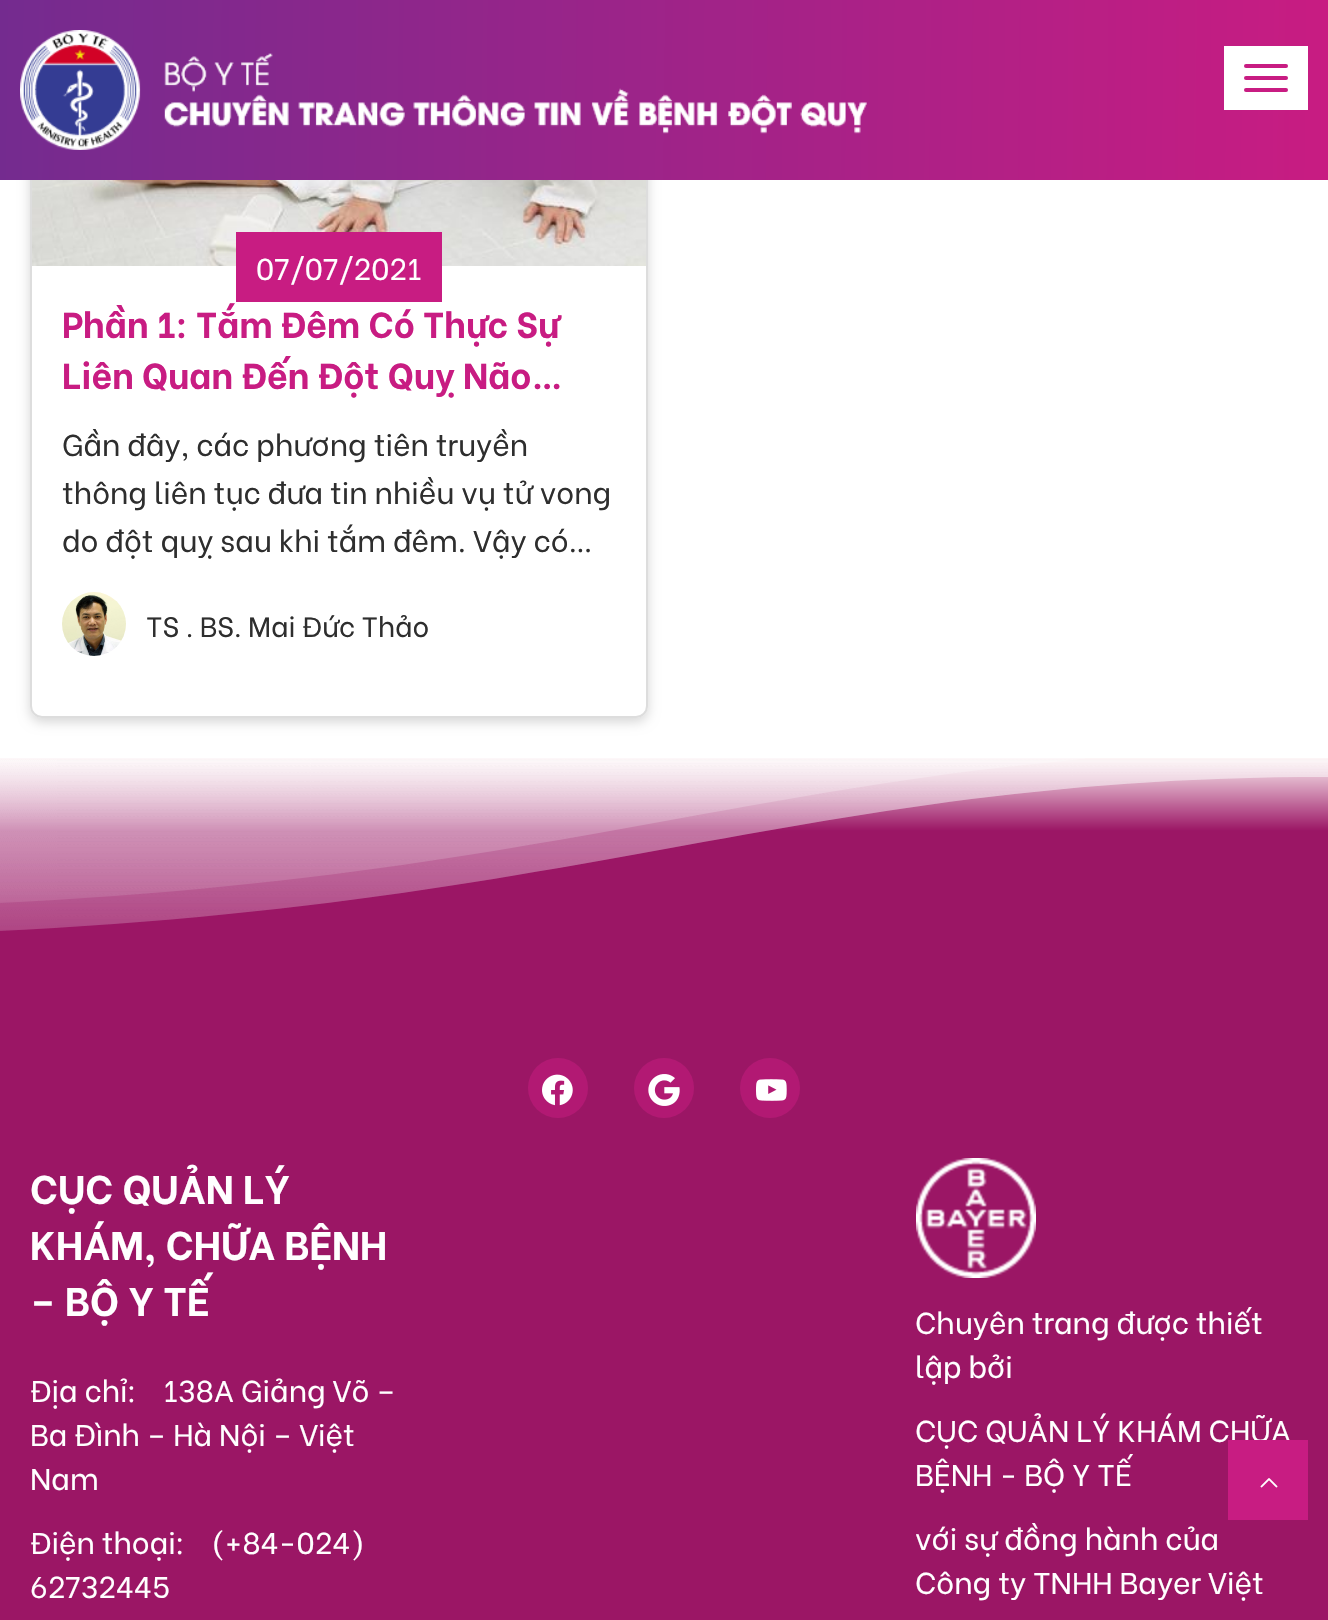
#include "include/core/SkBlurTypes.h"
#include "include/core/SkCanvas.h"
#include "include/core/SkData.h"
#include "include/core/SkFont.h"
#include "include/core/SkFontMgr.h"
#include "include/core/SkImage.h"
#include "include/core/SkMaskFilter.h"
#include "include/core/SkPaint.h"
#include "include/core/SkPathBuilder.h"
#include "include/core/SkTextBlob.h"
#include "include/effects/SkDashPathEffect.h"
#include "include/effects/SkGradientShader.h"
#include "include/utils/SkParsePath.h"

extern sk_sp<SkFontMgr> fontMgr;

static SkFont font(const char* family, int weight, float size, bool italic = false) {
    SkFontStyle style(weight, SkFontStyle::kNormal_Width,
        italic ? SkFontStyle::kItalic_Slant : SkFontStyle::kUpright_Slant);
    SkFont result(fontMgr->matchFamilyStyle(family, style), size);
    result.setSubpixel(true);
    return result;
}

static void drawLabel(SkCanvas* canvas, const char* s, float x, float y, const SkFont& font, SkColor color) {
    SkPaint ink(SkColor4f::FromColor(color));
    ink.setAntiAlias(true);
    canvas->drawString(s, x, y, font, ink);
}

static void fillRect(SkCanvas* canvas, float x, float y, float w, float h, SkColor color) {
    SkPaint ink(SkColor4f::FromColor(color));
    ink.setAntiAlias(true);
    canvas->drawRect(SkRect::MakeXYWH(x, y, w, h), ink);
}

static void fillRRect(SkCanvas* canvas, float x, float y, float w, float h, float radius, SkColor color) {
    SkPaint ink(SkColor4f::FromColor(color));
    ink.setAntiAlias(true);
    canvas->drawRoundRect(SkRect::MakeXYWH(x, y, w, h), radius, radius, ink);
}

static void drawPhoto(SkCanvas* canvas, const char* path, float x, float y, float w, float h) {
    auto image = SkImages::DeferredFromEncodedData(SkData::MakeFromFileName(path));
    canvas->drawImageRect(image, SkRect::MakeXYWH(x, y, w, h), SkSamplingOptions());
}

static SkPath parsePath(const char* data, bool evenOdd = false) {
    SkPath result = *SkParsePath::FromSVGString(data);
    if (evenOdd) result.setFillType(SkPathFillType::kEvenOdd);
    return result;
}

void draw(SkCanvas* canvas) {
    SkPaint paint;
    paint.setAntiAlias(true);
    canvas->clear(0xFFFFFFFF);
    canvas->save();
    canvas->clipPath(parsePath("M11 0H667V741H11ZM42-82H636C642.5-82 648-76.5 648-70V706C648 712.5 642.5 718 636 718H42C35.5 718 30 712.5 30 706V-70C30-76.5 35.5-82 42-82Z", true), true);
    paint.setColor(0x29000000);
    paint.setMaskFilter(SkMaskFilter::MakeBlur(kNormal_SkBlurStyle, 6));
    canvas->drawRoundRect(SkRect::MakeXYWH(30, -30, 618, 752), 12, 12, paint);
    paint.setMaskFilter(nullptr);
    canvas->restore();
    paint.setStroke(true);
    paint.setStrokeWidth(2);
    paint.setColor(0xFFDDDDDD);
    canvas->drawRoundRect(SkRect::MakeXYWH(31, -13, 616, 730), 11, 11, paint);
    paint.setStroke(false);
    {
        const SkColor colors[] = {0xFF742B8F, 0xFFC81C82};
        const float stops[] = {0, 1};
        const SkPoint ends[] = {{-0.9f, 83}, {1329, 97}};
        paint.setShader(SkGradientShader::MakeLinear(ends, colors, stops, 2, SkTileMode::kClamp));
        paint.setAlpha(255);
    }
    canvas->drawRect(SkRect::MakeXYWH(0, 0, 1328, 180), paint);
    drawPhoto(canvas, "assets/img1.png", 20, 30, 847, 120);
    fillRect(canvas, 1224, 46, 84, 64, 0xFFFFFFFF);
    fillRRect(canvas, 1244, 64, 44, 4, 2, 0xFFC81C82);
    fillRRect(canvas, 1244, 76, 44, 4, 2, 0xFFC81C82);
    fillRRect(canvas, 1244, 88, 44, 4, 2, 0xFFC81C82);
    drawPhoto(canvas, "assets/img2.png", 32, 180, 614, 86);
    fillRect(canvas, 236, 232, 206, 70, 0xFFC81C82);
    SkFont font1 = font("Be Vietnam", 400, 30);
    drawLabel(canvas, "07/07/2021", 256, 280, font1, 0xFFFFFFFF);
    SkFont font2 = font("Be Vietnam", 700, 36);
    drawLabel(canvas, "Phần 1: Tắm Đêm Có Thực Sự", 62, 338, font2, 0xFFC81C82);
    drawLabel(canvas, "Liên Quan Đến Đột Quỵ Não…", 62, 389, font2, 0xFFC81C82);
    drawLabel(canvas, "Gần đây, các phương tiên truyền", 62, 456, font1, 0xFF2E2E2E);
    drawLabel(canvas, "thông liên tục đưa tin nhiều vụ tử vong", 62, 504, font1, 0xFF2E2E2E);
    drawLabel(canvas, "do đột quỵ sau khi tắm đêm. Vậy có…", 62, 552, font1, 0xFF2E2E2E);
    drawPhoto(canvas, "assets/img3.png", 62, 592, 64, 64);
    SkFont font3 = font("Be Vietnam", 400, 28);
    drawLabel(canvas, "TS . BS. Mai Đức Thảo", 146, 637, font3, 0xFF2E2E2E);
    {
        const SkColor colors[] = {0xFFFDF2F3, 0xFF9B1665};
        const float stops[] = {0, 0.28f};
        const SkPoint ends[] = {{664, 758}, {664, 1018}};
        paint.setShader(SkGradientShader::MakeLinear(ends, colors, stops, 2, SkTileMode::kClamp));
        paint.setAlpha(255);
    }
    canvas->drawRect(SkRect::MakeXYWH(0, 758, 1328, 260), paint);
    drawPhoto(canvas, "assets/img4.png", 0, 758, 1085, 145);
    drawPhoto(canvas, "assets/img5.png", 0, 758, 1328, 173);
    drawPhoto(canvas, "assets/img6.png", 0, 760, 1328, 171);
    fillRect(canvas, 0, 1018, 1328, 602, 0xFF9B1665);
    paint.setShader(nullptr);
    paint.setColor(0xFFB21973);
    canvas->drawCircle(558, 1088, 30, paint);
    drawPhoto(canvas, "assets/img7.png", 542, 1074, 31, 32);
    canvas->drawCircle(664, 1088, 30, paint);
    drawPhoto(canvas, "assets/img8.png", 648, 1074, 32, 32);
    canvas->drawCircle(770, 1088, 30, paint);
    drawPhoto(canvas, "assets/img9.png", 756, 1079, 31, 22);
    SkFont font4 = font("Be Vietnam", 700, 40);
    drawLabel(canvas, "CỤC QUẢN LÝ", 30, 1204, font4, 0xFFFFFFFF);
    drawLabel(canvas, "KHÁM, CHỮA BỆNH", 30, 1260, font4, 0xFFFFFFFF);
    drawLabel(canvas, "– BỘ Y TẾ", 30, 1316, font4, 0xFFFFFFFF);
    drawLabel(canvas, "Địa chỉ:", 30, 1402, font1, 0xFFFFFFFF);
    drawLabel(canvas, "138A Giảng Võ –", 163, 1402, font1, 0xFFFFFFFF);
    drawLabel(canvas, "Ba Đình – Hà Nội – Việt", 30, 1446, font1, 0xFFFFFFFF);
    drawLabel(canvas, "Nam", 30, 1490, font1, 0xFFFFFFFF);
    drawLabel(canvas, "Điện thoại:", 30, 1554, font1, 0xFFFFFFFF);
    drawLabel(canvas, "(+84-024)", 211, 1554, font1, 0xFFFFFFFF);
    drawLabel(canvas, "62732445", 30, 1598, font1, 0xFFFFFFFF);
    drawPhoto(canvas, "assets/img10.png", 916, 1158, 120, 120);
    drawLabel(canvas, "Chuyên trang được thiết", 915, 1334, font1, 0xFFFFFFFF);
    drawLabel(canvas, "lập bởi", 915, 1378, font1, 0xFFFFFFFF);
    drawLabel(canvas, "CỤC QUẢN LÝ KHÁM CHỮA", 915, 1442, font1, 0xFFFFFFFF);
    drawLabel(canvas, "BỆNH - BỘ Y TẾ", 915, 1486, font1, 0xFFFFFFFF);
    drawLabel(canvas, "với sự đồng hành của", 915, 1550, font1, 0xFFFFFFFF);
    drawLabel(canvas, "Công ty TNHH Bayer Việt", 915, 1594, font1, 0xFFFFFFFF);
    fillRect(canvas, 1228, 1440, 80, 80, 0xFFC81C82);
    drawPhoto(canvas, "assets/img11.png", 1260, 1478, 18, 10);
}
